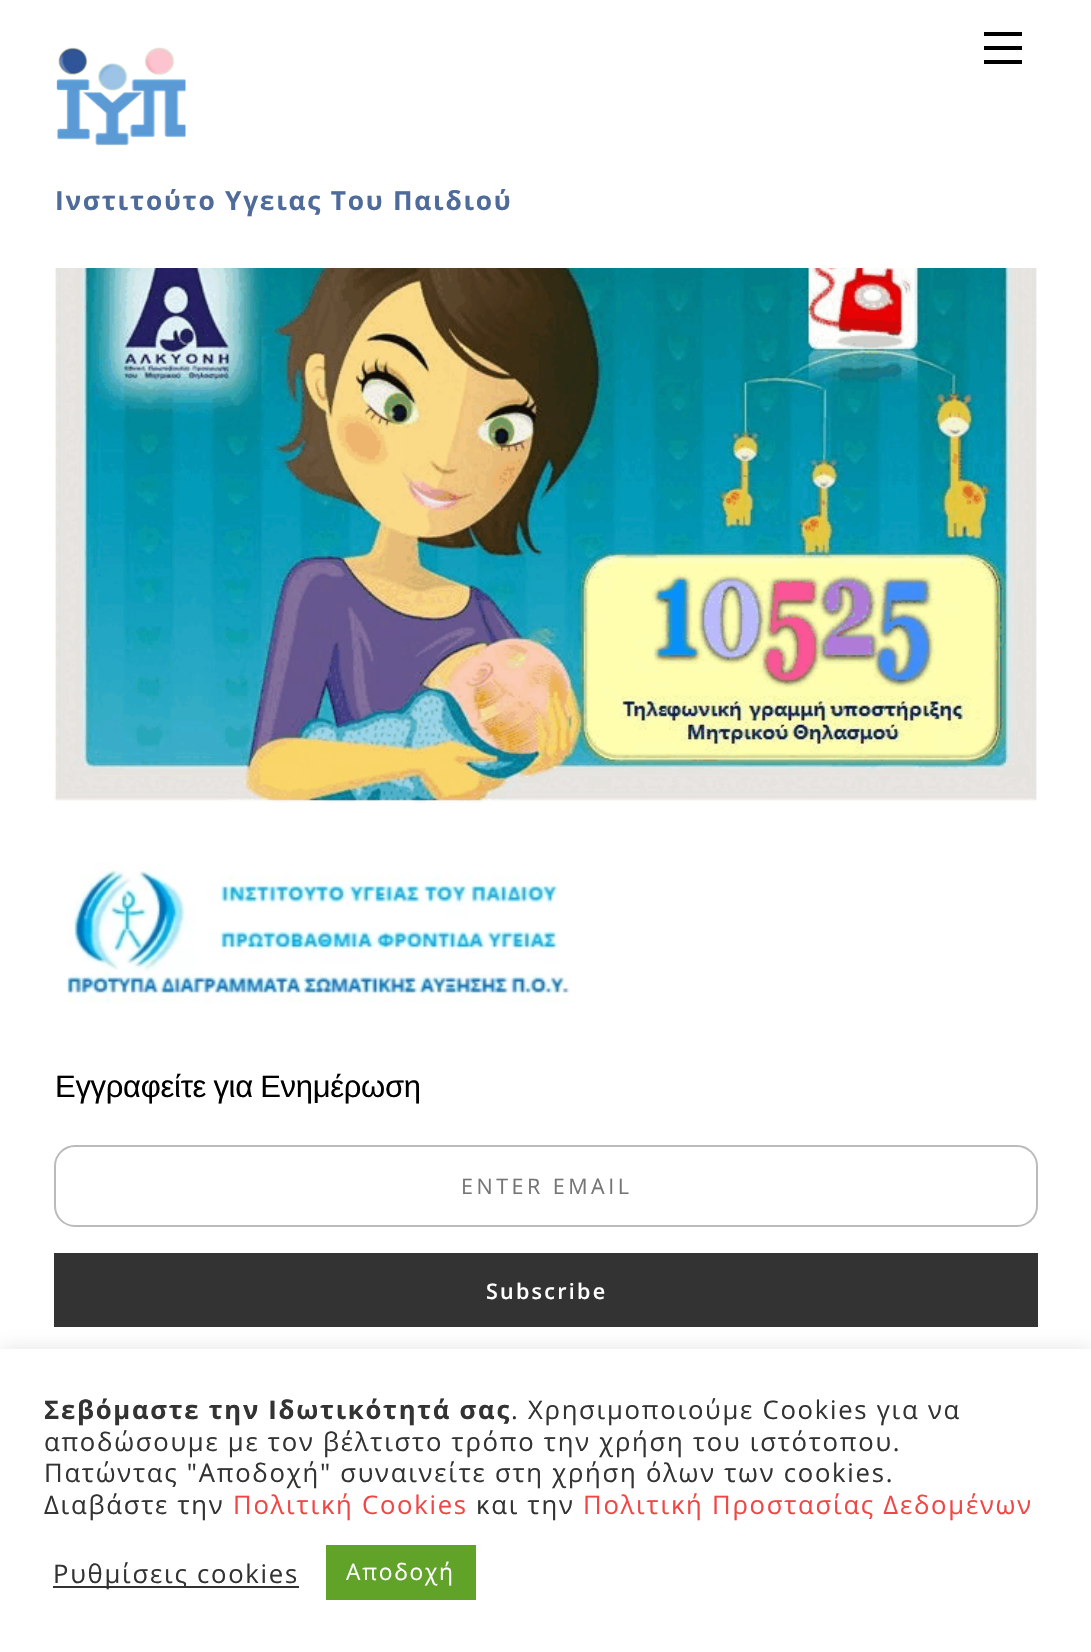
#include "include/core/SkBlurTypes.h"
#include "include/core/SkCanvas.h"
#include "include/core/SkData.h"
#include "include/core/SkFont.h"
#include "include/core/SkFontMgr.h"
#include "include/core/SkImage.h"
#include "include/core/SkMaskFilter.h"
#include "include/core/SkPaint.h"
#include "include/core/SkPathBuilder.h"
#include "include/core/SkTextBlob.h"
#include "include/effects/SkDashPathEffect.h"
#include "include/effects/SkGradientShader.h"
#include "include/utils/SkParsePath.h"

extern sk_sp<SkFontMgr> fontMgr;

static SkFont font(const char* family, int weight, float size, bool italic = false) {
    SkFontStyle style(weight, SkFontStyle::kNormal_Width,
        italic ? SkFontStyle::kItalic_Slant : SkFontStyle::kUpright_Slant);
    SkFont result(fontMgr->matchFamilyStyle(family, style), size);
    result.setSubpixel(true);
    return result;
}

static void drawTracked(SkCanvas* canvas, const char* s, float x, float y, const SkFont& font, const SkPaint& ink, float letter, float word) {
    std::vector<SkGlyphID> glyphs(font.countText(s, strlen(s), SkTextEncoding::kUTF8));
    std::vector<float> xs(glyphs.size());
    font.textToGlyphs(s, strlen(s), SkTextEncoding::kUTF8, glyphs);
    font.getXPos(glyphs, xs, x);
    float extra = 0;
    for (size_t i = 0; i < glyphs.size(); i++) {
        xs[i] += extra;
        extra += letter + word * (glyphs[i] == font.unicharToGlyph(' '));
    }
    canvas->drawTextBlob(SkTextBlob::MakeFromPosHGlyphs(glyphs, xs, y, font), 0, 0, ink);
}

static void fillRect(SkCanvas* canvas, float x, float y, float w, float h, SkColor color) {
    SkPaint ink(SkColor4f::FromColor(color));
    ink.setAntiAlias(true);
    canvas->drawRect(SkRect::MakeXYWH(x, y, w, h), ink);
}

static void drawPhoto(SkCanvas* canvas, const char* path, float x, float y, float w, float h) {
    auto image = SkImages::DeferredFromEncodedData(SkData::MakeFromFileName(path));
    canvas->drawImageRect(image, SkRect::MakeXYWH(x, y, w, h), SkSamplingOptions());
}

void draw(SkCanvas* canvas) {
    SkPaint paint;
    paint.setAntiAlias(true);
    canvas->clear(0xFFFFFFFF);
    fillRect(canvas, 984, 60, 38, 4, 0xFF000000);
    fillRect(canvas, 984, 32, 38, 4, 0xFF000000);
    fillRect(canvas, 984, 46, 38, 4, 0xFF000000);
    drawPhoto(canvas, "assets/img1.png", 56, 47, 130, 99);
    SkFont font1 = font("Open Sans", 700, 26.25f);
    paint.setColor(0xFF4F6B9A);
    drawTracked(canvas, "Ινστιτούτο Υγειας Του Παιδιού", 55, 210, font1, paint, 1.75f, 0);
    drawPhoto(canvas, "assets/img2.png", 54, 268, 983, 535);
    drawPhoto(canvas, "assets/img3.png", 66, 863, 504, 140);
    SkFont font2 = font("Liberation Sans", 400, 31);
    paint.setColor(0xFF000000);
    drawTracked(canvas, "Εγγραφείτε για Ενημέρωση", 55, 1097, font2, paint, -0.3f, -1);
    paint.setStroke(true);
    paint.setStrokeWidth(2);
    paint.setColor(0xFFBBBBBB);
    canvas->drawRoundRect(SkRect::MakeXYWH(55, 1146, 982, 80), 20, 20, paint);
    SkFont font3 = font("Open Sans", 400, 21.5f);
    paint.setStroke(false);
    paint.setColor(0xFF757575);
    drawTracked(canvas, "ENTER EMAIL", 461, 1194, font3, paint, 3.5f, 0);
    fillRect(canvas, 54, 1253, 984, 74, 0xFF333333);
    SkFont font4 = font("Open Sans", 600, 21.5f);
    paint.setColor(0xFFFFFFFF);
    drawTracked(canvas, "Subscribe", 486, 1299, font4, paint, 2.25f, 0);
    paint.setColor(0x4DACABAB);
    paint.setMaskFilter(SkMaskFilter::MakeBlur(kNormal_SkBlurStyle, 9));
    canvas->drawRect(SkRect::MakeXYWH(0, 1348, 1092, 302), paint);
    paint.setMaskFilter(nullptr);
    fillRect(canvas, 0, 1349, 1091, 303, 0xFFFFFFFF);
    SkFont font5 = font("Open Sans", 700, 25.65f);
    paint.setColor(0xFF333333);
    drawTracked(canvas, "Σεβόμαστε την Ιδωτικότητά σας", 44, 1419, font5, paint, 1.75f, 0);
    SkFont font6 = font("Open Sans", 400, 25.65f);
    drawTracked(canvas, ". Χρησιμοποιούμε Cookies για να", 511, 1419, font6, paint, 1.75f, 0);
    drawTracked(canvas, "αποδώσουμε με τον βέλτιστο τρόπο την χρήση του ιστότοπου.", 44, 1451, font6, paint, 1.75f, 0);
    drawTracked(canvas, "Πατώντας \"Αποδοχή\" συναινείτε στη χρήση όλων των cookies.", 44, 1482, font6, paint, 1.75f, 0);
    drawTracked(canvas, "Διαβάστε την", 44, 1514, font6, paint, 1.75f, 0);
    paint.setColor(0xFFF04646);
    drawTracked(canvas, "Πολιτική Cookies", 233, 1514, font6, paint, 1.75f, 0);
    paint.setColor(0xFF333333);
    drawTracked(canvas, "και την", 476, 1514, font6, paint, 1.75f, 0);
    paint.setColor(0xFFF04646);
    drawTracked(canvas, "Πολιτική Προστασίας Δεδομένων", 583, 1514, font6, paint, 1.75f, 0);
    fillRect(canvas, 53, 1586, 246, 2, 0xFF333333);
    paint.setColor(0xFF333333);
    drawTracked(canvas, "Ρυθμίσεις cookies", 53, 1583, font6, paint, 1.75f, 0);
    fillRect(canvas, 326, 1545, 150, 55, 0xFF61A229);
    SkFont font7 = font("Open Sans", 400, 22.75f);
    paint.setColor(0xFFFFFFFF);
    drawTracked(canvas, "Αποδοχή", 346, 1580, font7, paint, 1.75f, 0);
}
